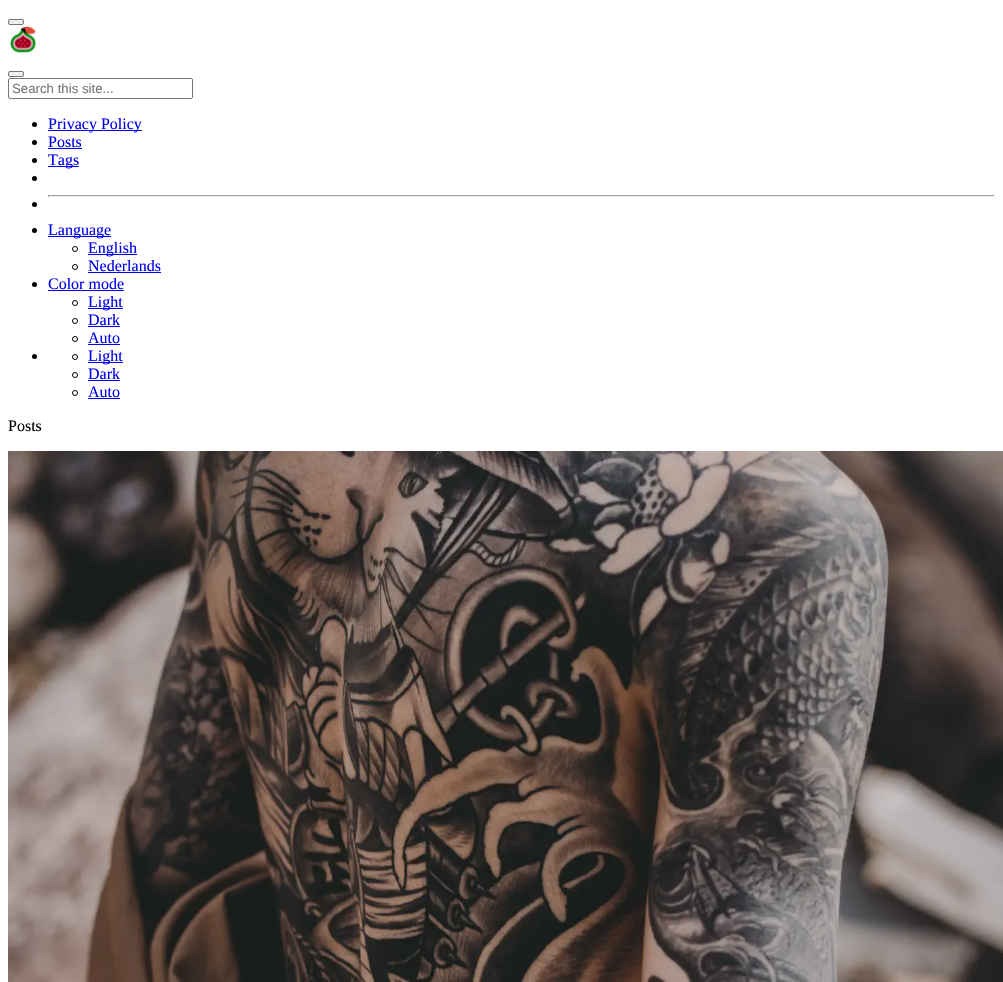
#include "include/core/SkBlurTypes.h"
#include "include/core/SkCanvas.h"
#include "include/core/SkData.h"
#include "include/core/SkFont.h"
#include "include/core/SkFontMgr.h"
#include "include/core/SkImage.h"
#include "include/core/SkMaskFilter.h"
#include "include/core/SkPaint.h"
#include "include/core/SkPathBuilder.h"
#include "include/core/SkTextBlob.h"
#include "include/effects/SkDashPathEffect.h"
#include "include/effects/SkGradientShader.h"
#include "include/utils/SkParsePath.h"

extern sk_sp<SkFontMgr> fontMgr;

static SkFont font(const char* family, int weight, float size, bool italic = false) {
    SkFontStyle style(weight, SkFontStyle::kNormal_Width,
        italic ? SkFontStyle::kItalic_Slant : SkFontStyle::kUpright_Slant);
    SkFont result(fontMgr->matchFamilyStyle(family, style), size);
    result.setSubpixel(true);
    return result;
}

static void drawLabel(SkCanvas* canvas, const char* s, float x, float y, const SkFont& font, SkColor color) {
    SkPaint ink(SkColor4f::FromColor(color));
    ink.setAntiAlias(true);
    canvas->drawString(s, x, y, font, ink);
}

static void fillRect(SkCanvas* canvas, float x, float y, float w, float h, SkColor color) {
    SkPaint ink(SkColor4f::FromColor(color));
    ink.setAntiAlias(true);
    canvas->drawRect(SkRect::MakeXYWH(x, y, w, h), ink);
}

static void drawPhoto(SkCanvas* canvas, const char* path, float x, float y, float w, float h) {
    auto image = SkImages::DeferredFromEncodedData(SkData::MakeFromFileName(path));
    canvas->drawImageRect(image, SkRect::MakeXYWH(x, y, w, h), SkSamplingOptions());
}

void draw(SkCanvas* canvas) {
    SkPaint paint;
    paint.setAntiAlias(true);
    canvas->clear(0xFFFFFFFF);
    paint.setColor(0xFFEFEFEF);
    canvas->drawRoundRect(SkRect::MakeXYWH(8.5f, 19.5f, 15, 5), 1.5f, 1.5f, paint);
    paint.setStroke(true);
    paint.setStrokeWidth(1);
    paint.setColor(0xFF767676);
    canvas->drawRoundRect(SkRect::MakeXYWH(8.5f, 19.5f, 15, 5), 1.5f, 1.5f, paint);
    drawPhoto(canvas, "assets/img1.png", 10, 26, 27, 27);
    paint.setStroke(false);
    paint.setColor(0xFFEFEFEF);
    canvas->drawRoundRect(SkRect::MakeXYWH(8.5f, 71.5f, 15, 5), 1.5f, 1.5f, paint);
    paint.setStroke(true);
    paint.setColor(0xFF767676);
    canvas->drawRoundRect(SkRect::MakeXYWH(8.5f, 71.5f, 15, 5), 1.5f, 1.5f, paint);
    canvas->drawRoundRect(SkRect::MakeXYWH(8.5f, 78.5f, 184, 20), 1.5f, 1.5f, paint);
    SkFont font1 = font("Liberation Sans", 400, 13.25f);
    drawLabel(canvas, "Search this site...", 12, 93, font1, 0xFF757575);
    paint.setStroke(false);
    paint.setColor(0xFF000000);
    canvas->drawCircle(34.5f, 124.5f, 2.5f, paint);
    fillRect(canvas, 48, 130, 94, 1, 0xFF0000EE);
    SkFont font2 = font("Liberation Serif", 400, 16);
    drawLabel(canvas, "Privacy Policy", 48, 129, font2, 0xFF0000EE);
    canvas->drawCircle(34.5f, 142.5f, 2.5f, paint);
    drawLabel(canvas, "Posts", 48, 147, font2, 0xFF0000EE);
    fillRect(canvas, 48, 148, 34, 1, 0xFF0000EE);
    canvas->drawCircle(34.5f, 160.5f, 2.5f, paint);
    fillRect(canvas, 48, 166, 31, 1, 0xFF0000EE);
    drawLabel(canvas, "Tags", 48, 165, font2, 0xFF0000EE);
    canvas->drawCircle(34.5f, 178.5f, 2.5f, paint);
    fillRect(canvas, 48, 195, 947, 1, 0xFF9F9F9F);
    fillRect(canvas, 994, 195, 1, 2, 0xFFEEEEEE);
    fillRect(canvas, 48, 196, 947, 1, 0xFFEEEEEE);
    fillRect(canvas, 48, 195, 1, 2, 0xFF9F9F9F);
    canvas->drawCircle(34.5f, 204.5f, 2.5f, paint);
    canvas->drawCircle(34.5f, 230.5f, 2.5f, paint);
    fillRect(canvas, 48, 236, 63, 1, 0xFF0000EE);
    drawLabel(canvas, "Language", 48, 235, font2, 0xFF0000EE);
    paint.setStroke(true);
    canvas->drawCircle(75, 249, 2.5f, paint);
    fillRect(canvas, 88, 254, 49, 1, 0xFF0000EE);
    drawLabel(canvas, "English", 88, 253, font2, 0xFF0000EE);
    canvas->drawCircle(75, 267, 2.5f, paint);
    drawLabel(canvas, "Nederlands", 88, 271, font2, 0xFF0000EE);
    fillRect(canvas, 88, 272, 73, 1, 0xFF0000EE);
    paint.setStroke(false);
    canvas->drawCircle(34.5f, 284.5f, 2.5f, paint);
    drawLabel(canvas, "Color mode", 48, 289, font2, 0xFF0000EE);
    fillRect(canvas, 48, 290, 76, 1, 0xFF0000EE);
    paint.setStroke(true);
    canvas->drawCircle(75, 303, 2.5f, paint);
    fillRect(canvas, 88, 308, 35, 1, 0xFF0000EE);
    drawLabel(canvas, "Light", 88, 307, font2, 0xFF0000EE);
    canvas->drawCircle(75, 321, 2.5f, paint);
    drawLabel(canvas, "Dark", 88, 325, font2, 0xFF0000EE);
    fillRect(canvas, 88, 326, 32, 1, 0xFF0000EE);
    canvas->drawCircle(75, 339, 2.5f, paint);
    drawLabel(canvas, "Auto", 88, 343, font2, 0xFF0000EE);
    fillRect(canvas, 88, 344, 32, 1, 0xFF0000EE);
    paint.setStroke(false);
    canvas->drawCircle(34.5f, 356.5f, 2.5f, paint);
    paint.setStroke(true);
    canvas->drawCircle(75, 357, 2.5f, paint);
    fillRect(canvas, 88, 362, 35, 1, 0xFF0000EE);
    drawLabel(canvas, "Light", 88, 361, font2, 0xFF0000EE);
    canvas->drawCircle(75, 375, 2.5f, paint);
    drawLabel(canvas, "Dark", 88, 379, font2, 0xFF0000EE);
    fillRect(canvas, 88, 380, 32, 1, 0xFF0000EE);
    canvas->drawCircle(75, 393, 2.5f, paint);
    drawLabel(canvas, "Auto", 88, 397, font2, 0xFF0000EE);
    fillRect(canvas, 88, 398, 32, 1, 0xFF0000EE);
    drawLabel(canvas, "Posts", 8, 431, font2, 0xFF000000);
    drawPhoto(canvas, "assets/img2.png", 8, 451, 995, 531);
}
